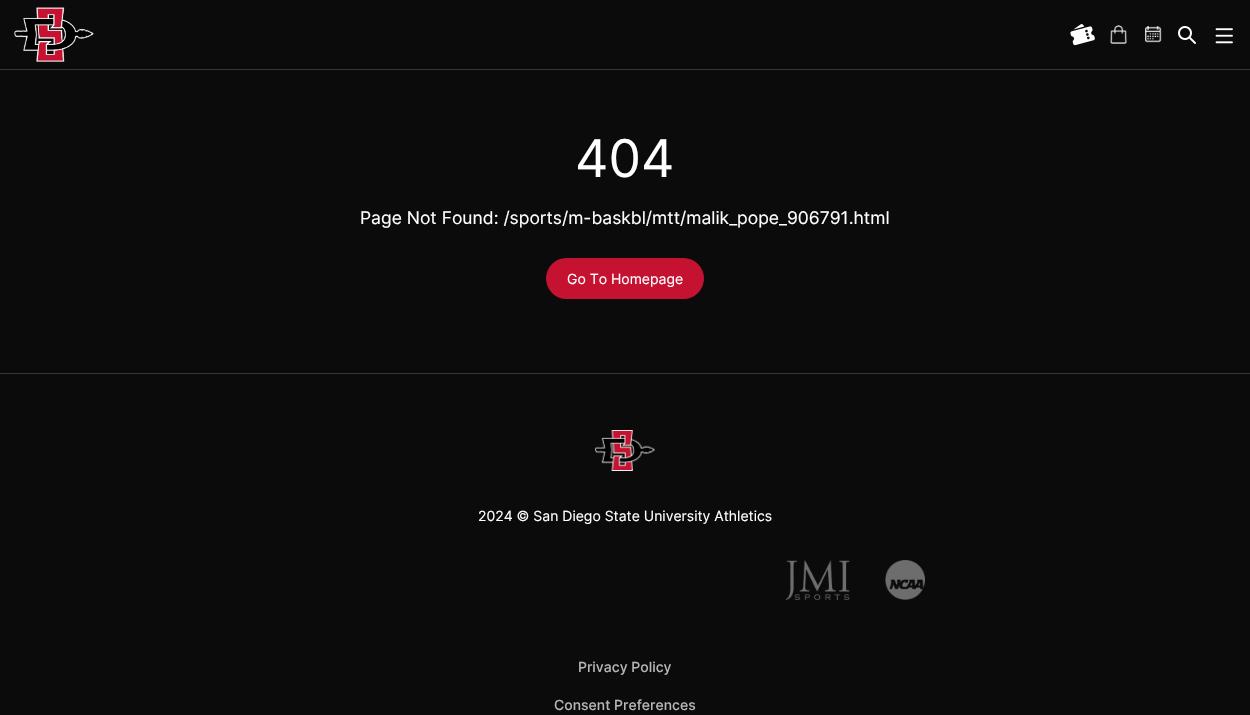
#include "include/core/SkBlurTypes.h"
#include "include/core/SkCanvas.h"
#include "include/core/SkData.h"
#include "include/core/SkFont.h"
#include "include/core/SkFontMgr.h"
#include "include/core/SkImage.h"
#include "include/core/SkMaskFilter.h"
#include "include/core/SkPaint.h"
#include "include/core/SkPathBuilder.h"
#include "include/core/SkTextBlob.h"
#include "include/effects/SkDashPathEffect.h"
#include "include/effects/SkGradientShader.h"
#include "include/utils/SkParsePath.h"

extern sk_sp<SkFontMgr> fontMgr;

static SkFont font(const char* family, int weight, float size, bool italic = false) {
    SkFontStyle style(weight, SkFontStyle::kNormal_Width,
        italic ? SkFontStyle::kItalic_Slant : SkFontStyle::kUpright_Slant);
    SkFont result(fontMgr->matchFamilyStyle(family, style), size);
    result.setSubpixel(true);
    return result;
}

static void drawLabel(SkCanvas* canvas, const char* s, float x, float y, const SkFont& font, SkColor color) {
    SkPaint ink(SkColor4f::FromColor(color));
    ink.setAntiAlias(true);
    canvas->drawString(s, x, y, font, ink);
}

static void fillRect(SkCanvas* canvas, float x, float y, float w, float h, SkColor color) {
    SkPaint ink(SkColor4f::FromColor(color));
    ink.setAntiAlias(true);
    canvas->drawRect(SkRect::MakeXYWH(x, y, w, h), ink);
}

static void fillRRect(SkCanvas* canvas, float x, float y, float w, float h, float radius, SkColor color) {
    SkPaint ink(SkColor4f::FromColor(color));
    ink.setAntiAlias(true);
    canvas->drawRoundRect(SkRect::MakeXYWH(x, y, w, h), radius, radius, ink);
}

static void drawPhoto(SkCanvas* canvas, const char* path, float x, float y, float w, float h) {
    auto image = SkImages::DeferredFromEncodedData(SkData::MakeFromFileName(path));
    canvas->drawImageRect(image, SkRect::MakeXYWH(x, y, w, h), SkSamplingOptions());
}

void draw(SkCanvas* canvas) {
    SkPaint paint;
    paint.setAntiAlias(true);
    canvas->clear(0xFF0B0B0B);
    fillRect(canvas, 0, 69, 1250, 1, 0xFF363636);
    drawPhoto(canvas, "assets/img1.png", 14, 7, 80, 55);
    drawPhoto(canvas, "assets/img2.png", 1070, 24, 25, 22);
    drawPhoto(canvas, "assets/img3.png", 1110, 25, 17, 19);
    drawPhoto(canvas, "assets/img4.png", 1145, 26, 17, 17);
    drawPhoto(canvas, "assets/img5.png", 1178, 26, 18, 18);
    drawPhoto(canvas, "assets/img6.png", 1215, 28, 18, 16);
    SkFont font1 = font("Inter", 400, 52);
    drawLabel(canvas, "404", 575, 177, font1, 0xFFFFFFFF);
    SkFont font2 = font("Inter", 400, 17.5f);
    drawLabel(canvas, "Page Not Found: /sports/m-baskbl/mtt/malik_pope_906791.html", 360, 224, font2, 0xFFFFFFFF);
    fillRRect(canvas, 546, 258, 158, 41, 20.5f, 0xFFC41230);
    SkFont font3 = font("Inter", 400, 14);
    drawLabel(canvas, "Go To Homepage", 567, 284, font3, 0xFFFFFFFF);
    fillRect(canvas, 0, 373, 1250, 1, 0xFF363636);
    drawPhoto(canvas, "assets/img7.png", 595, 430, 60, 41);
    drawLabel(canvas, "2024 © San Diego State University Athletics", 478, 521, font3, 0xFFFFFFFF);
    drawPhoto(canvas, "assets/img8.png", 785, 560, 65, 40);
    drawPhoto(canvas, "assets/img9.png", 885, 560, 40, 40);
    SkFont font4 = font("Inter", 500, 14);
    drawLabel(canvas, "Privacy Policy", 578, 672, font4, 0xFFB6B6B6);
    drawLabel(canvas, "Consent Preferences", 554, 710, font4, 0xFFB6B6B6);
}
